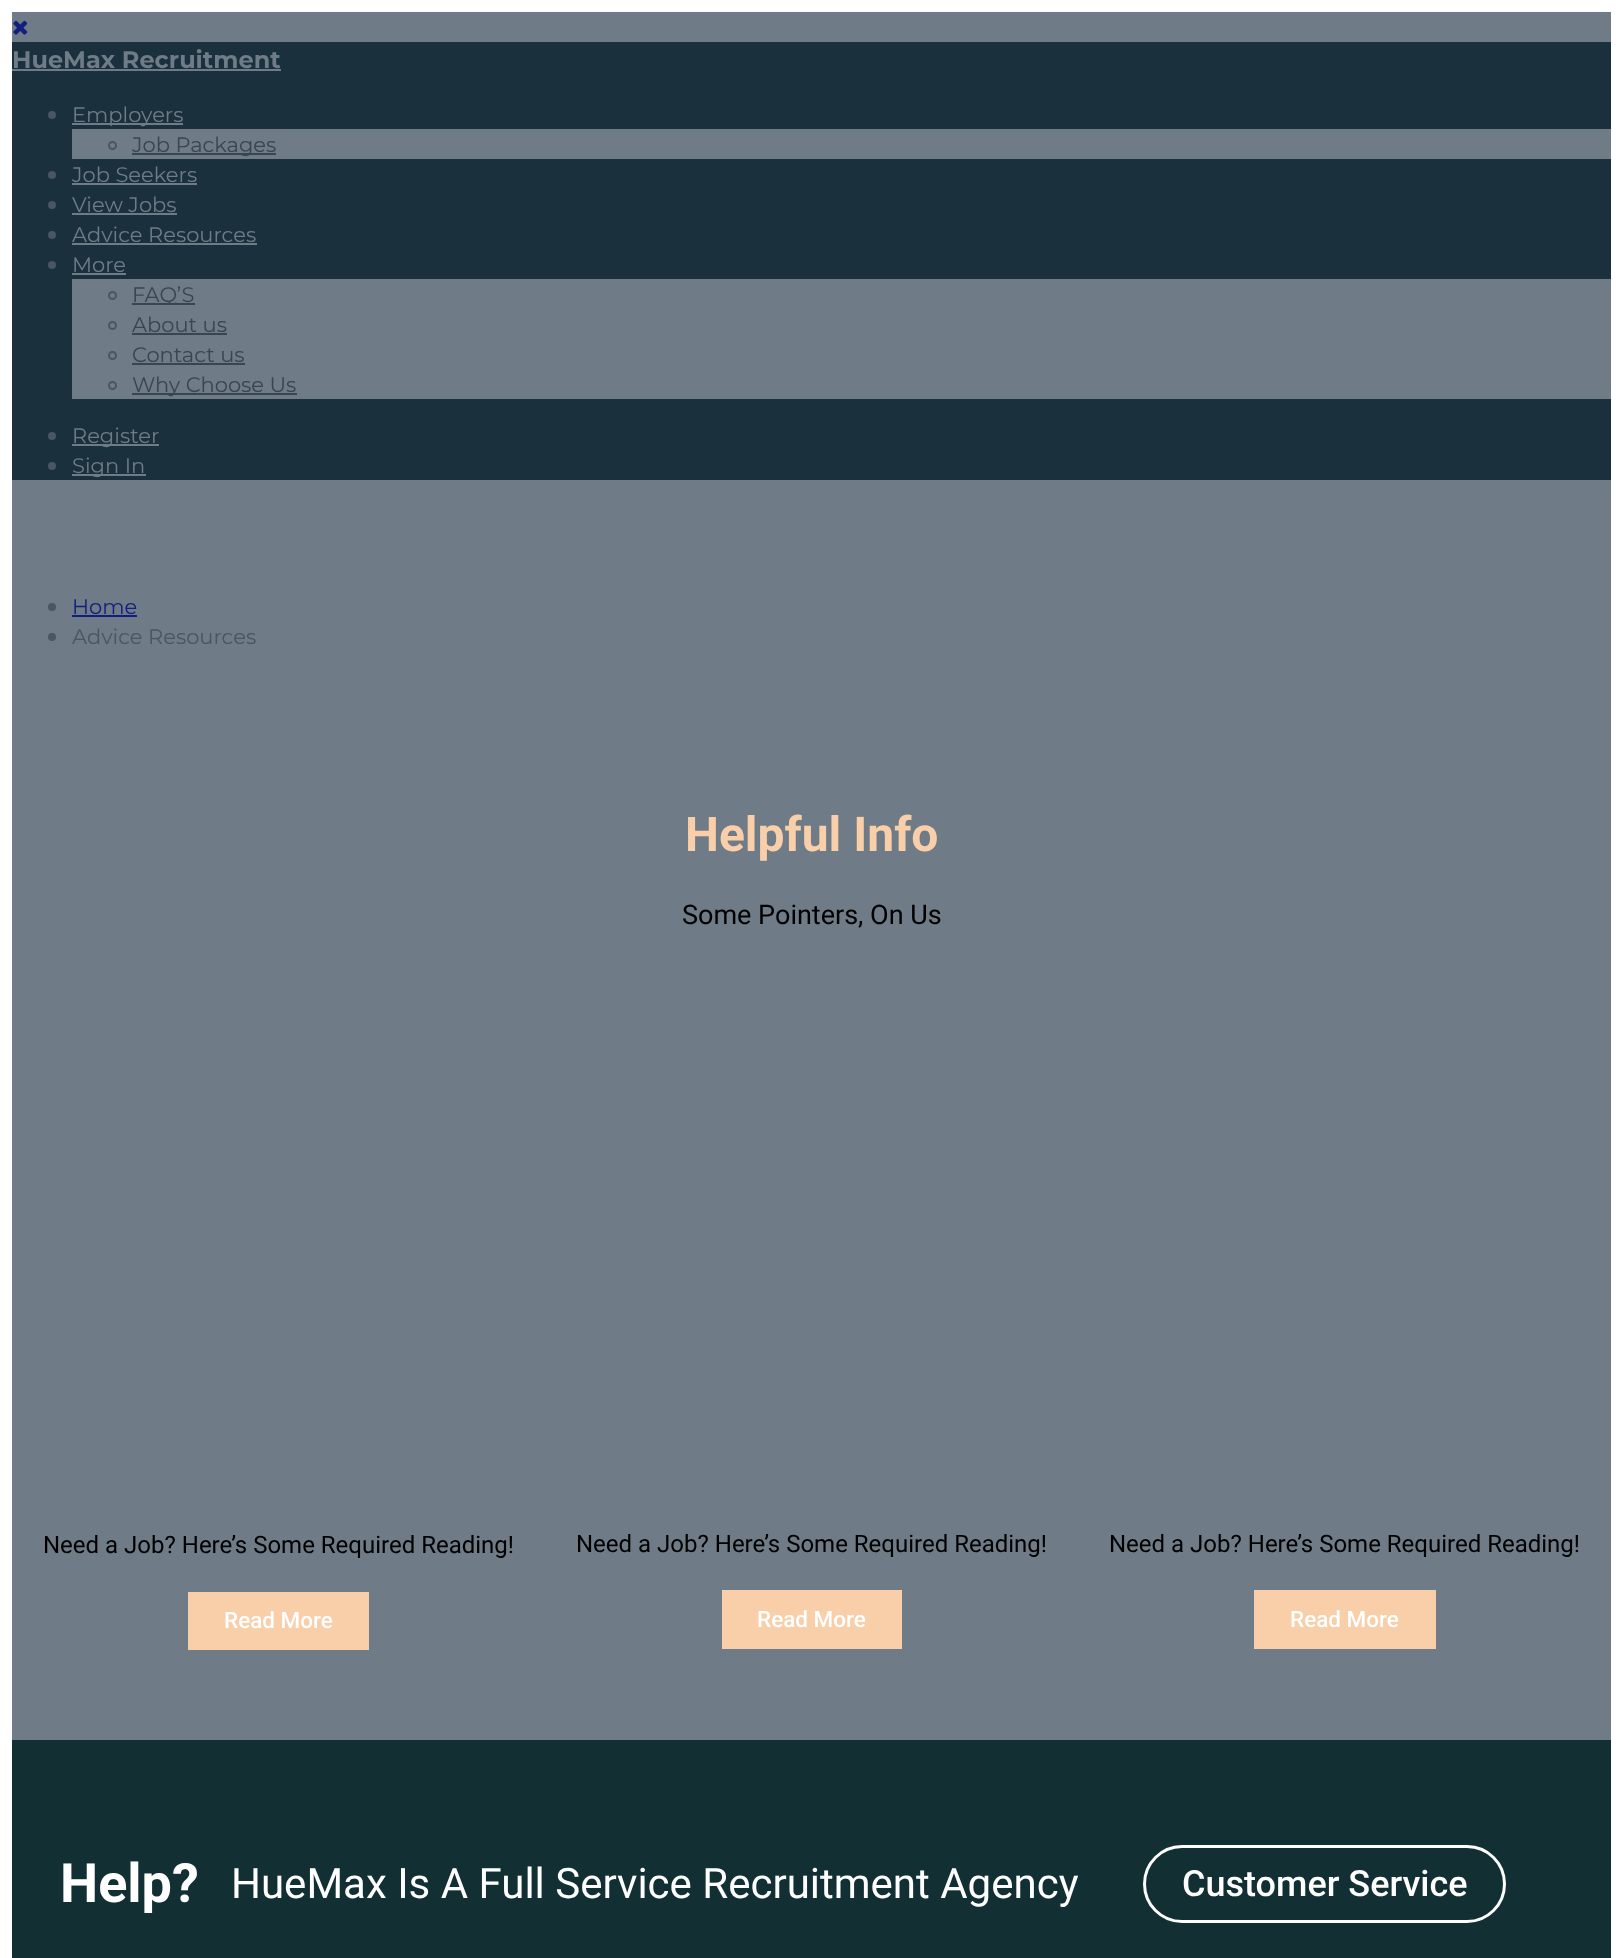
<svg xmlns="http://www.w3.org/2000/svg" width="1623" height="1958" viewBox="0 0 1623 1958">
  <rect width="100%" height="100%" fill="#ffffff"/>
  <rect x="12" y="12" width="1599" height="1728" fill="#6f7b86"/>
  <image x="13" y="20" width="15" height="15" href="img1.png"/>
  <rect x="12" y="42" width="1599" height="438" fill="#1a313d"/>
  <text x="12" y="68" font-family="Montserrat" font-size="24" font-weight="bold" fill="#6f7b86">HueMax Recruitment</text>
  <rect x="12" y="69" width="269" height="2" fill="#6f7b86"/>
  <circle cx="52" cy="115" r="4" fill="#4a5661"/>
  <rect x="72" y="123" width="111" height="2" fill="#6f7b86"/>
  <text x="72" y="122" font-family="Montserrat" font-size="21" fill="#6f7b86">Employers</text>
  <rect x="72" y="129" width="1539" height="30" fill="#6f7b86"/>
  <circle cx="112.5" cy="145.5" r="3.5" fill="none" stroke="#4a5661" stroke-width="2"/>
  <rect x="132" y="153" width="144" height="2" fill="#384651"/>
  <text x="132" y="152" font-family="Montserrat" font-size="21" fill="#384651">Job Packages</text>
  <circle cx="52" cy="175" r="4" fill="#4a5661"/>
  <text x="72" y="182" font-family="Montserrat" font-size="21" fill="#6f7b86">Job Seekers</text>
  <rect x="72" y="183" width="125" height="2" fill="#6f7b86"/>
  <circle cx="52" cy="205" r="4" fill="#4a5661"/>
  <text x="72" y="212" font-family="Montserrat" font-size="21" fill="#6f7b86">View Jobs</text>
  <rect x="72" y="213" width="105" height="2" fill="#6f7b86"/>
  <circle cx="52" cy="235" r="4" fill="#4a5661"/>
  <text x="72" y="242" font-family="Montserrat" font-size="21" fill="#6f7b86">Advice Resources</text>
  <rect x="72" y="243" width="185" height="2" fill="#6f7b86"/>
  <circle cx="52" cy="265" r="4" fill="#4a5661"/>
  <text x="72" y="272" font-family="Montserrat" font-size="21" fill="#6f7b86">More</text>
  <rect x="72" y="273" width="54" height="2" fill="#6f7b86"/>
  <rect x="72" y="279" width="1539" height="120" fill="#6f7b86"/>
  <circle cx="112.5" cy="295.5" r="3.5" fill="none" stroke="#4a5661" stroke-width="2"/>
  <rect x="132" y="303" width="63" height="2" fill="#384651"/>
  <text x="132" y="302" font-family="Montserrat" font-size="21" fill="#384651">FAQ’S</text>
  <circle cx="112.5" cy="325.5" r="3.5" fill="none" stroke="#4a5661" stroke-width="2"/>
  <text x="132" y="332" font-family="Montserrat" font-size="21" fill="#384651">About us</text>
  <rect x="132" y="333" width="95" height="2" fill="#384651"/>
  <circle cx="112.5" cy="355.5" r="3.5" fill="none" stroke="#4a5661" stroke-width="2"/>
  <text x="132" y="362" font-family="Montserrat" font-size="21" fill="#384651">Contact us</text>
  <rect x="132" y="363" width="113" height="2" fill="#384651"/>
  <circle cx="112.5" cy="385.5" r="3.5" fill="none" stroke="#4a5661" stroke-width="2"/>
  <rect x="132" y="393" width="165" height="2" fill="#384651"/>
  <text x="132" y="392" font-family="Montserrat" font-size="21" fill="#384651">Why Choose Us</text>
  <circle cx="52" cy="436" r="4" fill="#4a5661"/>
  <rect x="72" y="444" width="87" height="2" fill="#6f7b86"/>
  <text x="72" y="443" font-family="Montserrat" font-size="21" fill="#6f7b86">Register</text>
  <circle cx="52" cy="466" r="4" fill="#4a5661"/>
  <rect x="72" y="474" width="74" height="2" fill="#6f7b86"/>
  <text x="72" y="473" font-family="Montserrat" font-size="21" fill="#6f7b86">Sign In</text>
  <circle cx="52" cy="607" r="4" fill="#4a5661"/>
  <text x="72" y="614" font-family="Montserrat" font-size="21" fill="#131f80">Home</text>
  <rect x="72" y="615" width="65" height="2" fill="#131f80"/>
  <circle cx="52" cy="637" r="4" fill="#4a5661"/>
  <text x="72" y="644" font-family="Montserrat" font-size="21" fill="#4a5661">Advice Resources</text>
  <text x="685" y="851" font-family="Roboto" font-size="48" font-weight="bold" fill="#f8cfa9">Helpful Info</text>
  <text x="682" y="924" font-family="Roboto" font-size="27" fill="#000000">Some Pointers, On Us</text>
  <text x="43" y="1553" font-family="Roboto" font-size="24" fill="#000000">Need a Job? Here’s Some Required Reading!</text>
  <rect x="188" y="1592" width="181" height="58" fill="#f8cfa9"/>
  <text x="224" y="1628" font-family="Roboto" font-size="22.5" font-weight="500" fill="#ffffff">Read More</text>
  <text x="576" y="1552" font-family="Roboto" font-size="24" fill="#000000">Need a Job? Here’s Some Required Reading!</text>
  <rect x="722" y="1590" width="180" height="59" fill="#f8cfa9"/>
  <text x="757" y="1627" font-family="Roboto" font-size="22.5" font-weight="500" fill="#ffffff">Read More</text>
  <text x="1109" y="1552" font-family="Roboto" font-size="24" fill="#000000">Need a Job? Here’s Some Required Reading!</text>
  <rect x="1254" y="1590" width="182" height="59" fill="#f8cfa9"/>
  <text x="1290" y="1627" font-family="Roboto" font-size="22.5" font-weight="500" fill="#ffffff">Read More</text>
  <rect x="12" y="1740" width="1599" height="218" fill="#123033"/>
  <text x="60" y="1902" font-family="Roboto" font-size="54" font-weight="bold" fill="#ffffff">Help?</text>
  <text x="231" y="1898" font-family="Roboto" font-size="42" fill="#ffffff">HueMax Is A Full Service Recruitment Agency</text>
  <rect x="1144.5" y="1846.5" width="360" height="75" rx="37.5" fill="none" stroke="#ffffff" stroke-width="3"/>
  <text x="1182" y="1896" font-family="Roboto" font-size="36" font-weight="500" fill="#ffffff">Customer Service</text>
</svg>
